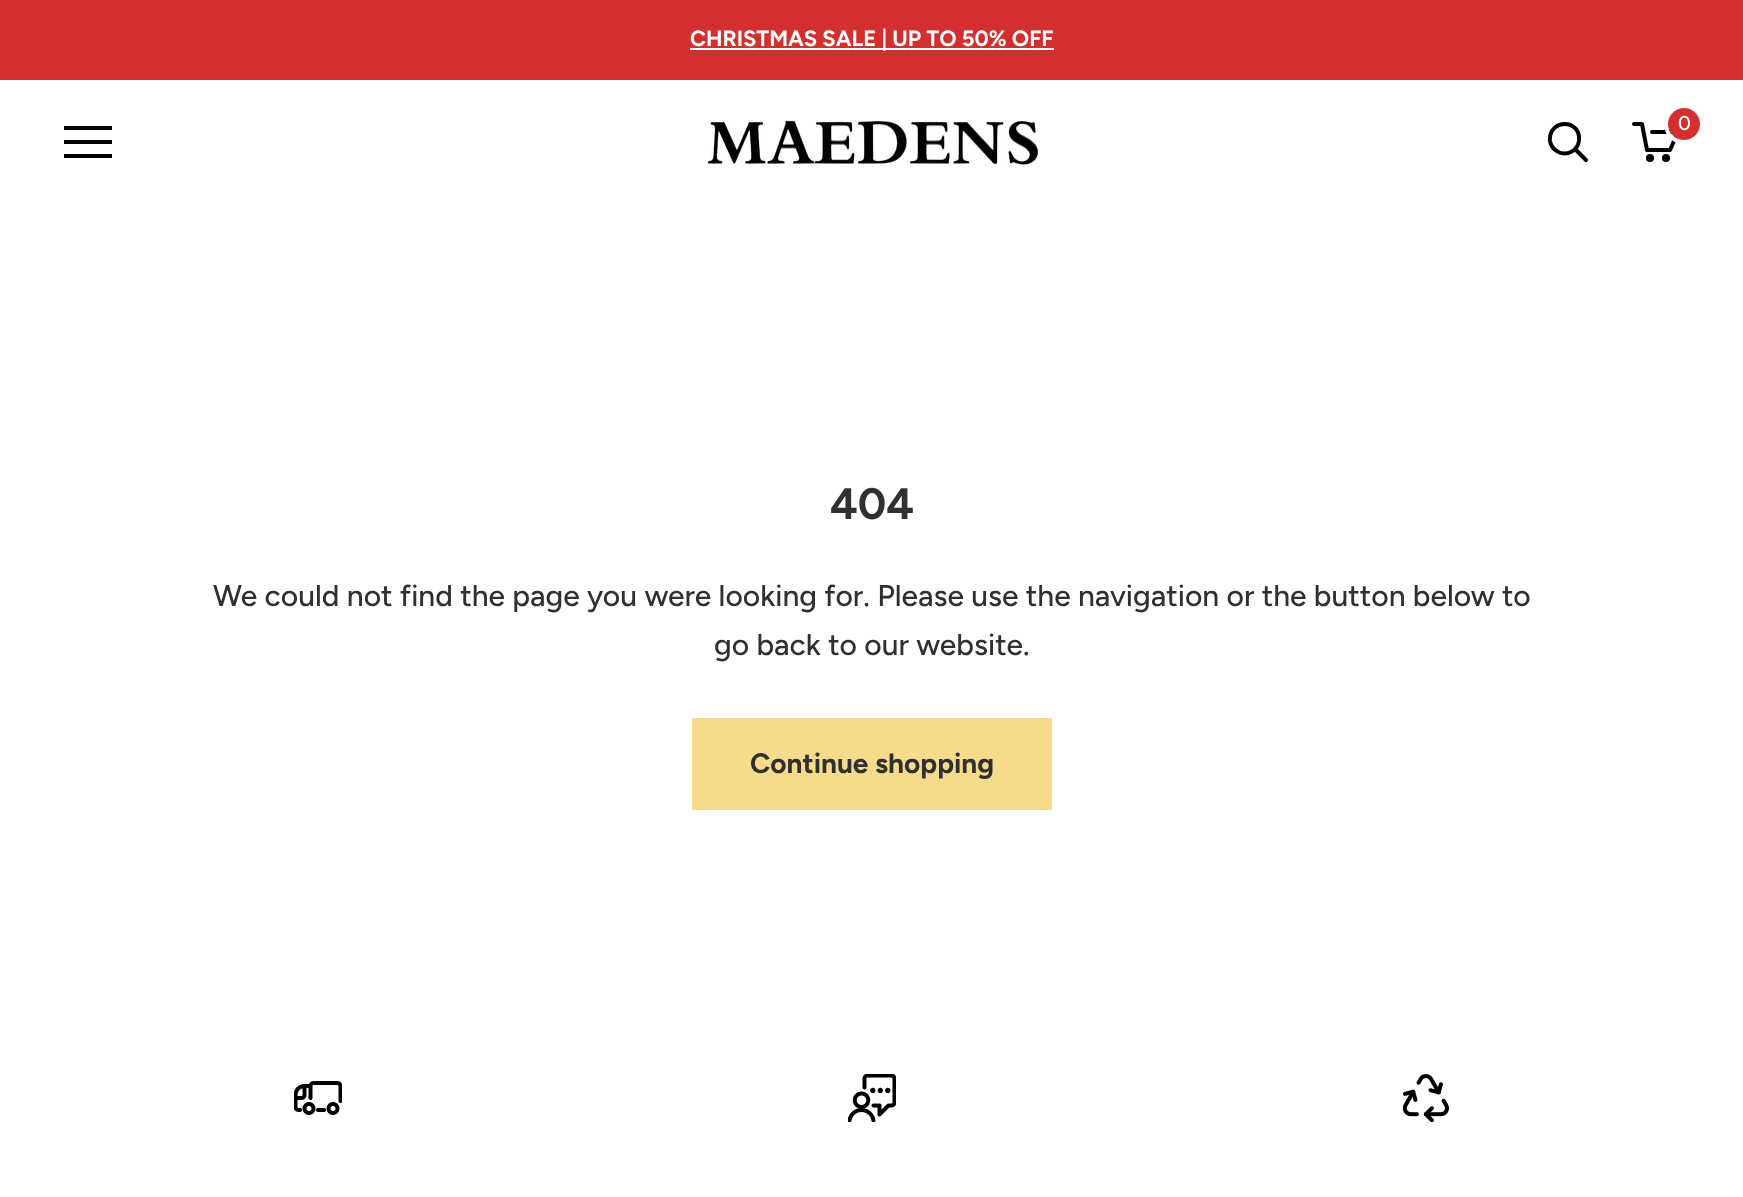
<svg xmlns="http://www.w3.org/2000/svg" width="1743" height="1197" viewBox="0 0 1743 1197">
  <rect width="100%" height="100%" fill="#ffffff"/>
  <rect x="0" y="0" width="1743" height="80" fill="#d42f2f"/>
  <rect x="690" y="48" width="364" height="2" fill="#ffffff"/>
  <text x="690" y="46" font-family="Figtree" font-size="22" font-weight="bold" fill="#ffffff">CHRISTMAS SALE | UP TO 50% OFF</text>
  <path d="M66 156H110M66 142H110M66 128H110" fill="none" stroke="#000000" stroke-width="4" stroke-linecap="square"/>
  <image x="707" y="120" width="331" height="45" href="img1.png"/>
  <path d="M1564.5 124C1549.5 124 1544 144 1557.5 151.5C1559.5 153 1562 153.5 1564.5 153.5C1584.5 152.5 1583.5 124 1564.5 124Z" fill="none" stroke="#000000" stroke-width="4"/>
  <path d="M1575.5 149.5L1586 160" fill="none" stroke="#000000" stroke-width="4" stroke-linecap="round"/>
  <path d="M1652 132H1678L1670 150H1647L1642 124H1634" fill="none" stroke="#000000" stroke-width="4" stroke-linecap="round" stroke-linejoin="round"/>
  <circle cx="1650" cy="158" r="2" fill="none" stroke="#000000" stroke-width="4"/>
  <circle cx="1666" cy="158" r="2" fill="none" stroke="#000000" stroke-width="4"/>
  <circle cx="1684" cy="124" r="18" fill="none" stroke="#ffffff" stroke-width="4"/>
  <circle cx="1684" cy="124" r="16" fill="#d42f2f"/>
  <text x="1678" y="130" font-family="Figtree" font-size="20" font-weight="500" fill="#ffffff">0</text>
  <text x="830" y="519" font-family="Figtree" font-size="44" font-weight="bold" fill="#303030">404</text>
  <text x="213" y="606" font-family="Figtree" font-size="30" font-weight="500" fill="#303030">We could not find the page you were looking for. Please use the navigation or the button below to</text>
  <text x="714" y="655" font-family="Figtree" font-size="30" font-weight="500" fill="#303030">go back to our website.</text>
  <rect x="693" y="719" width="358" height="90" fill="#f5db8b" stroke="#f5db8b" stroke-width="2"/>
  <text x="750" y="773" font-family="Figtree" font-size="28" font-weight="bold" fill="#303030">Continue shopping</text>
  <image x="294" y="1081" width="48" height="34" href="img2.png"/>
  <image x="848" y="1074" width="48" height="48" href="img3.png"/>
  <image x="1402" y="1074" width="47" height="48" href="img4.png"/>
</svg>
